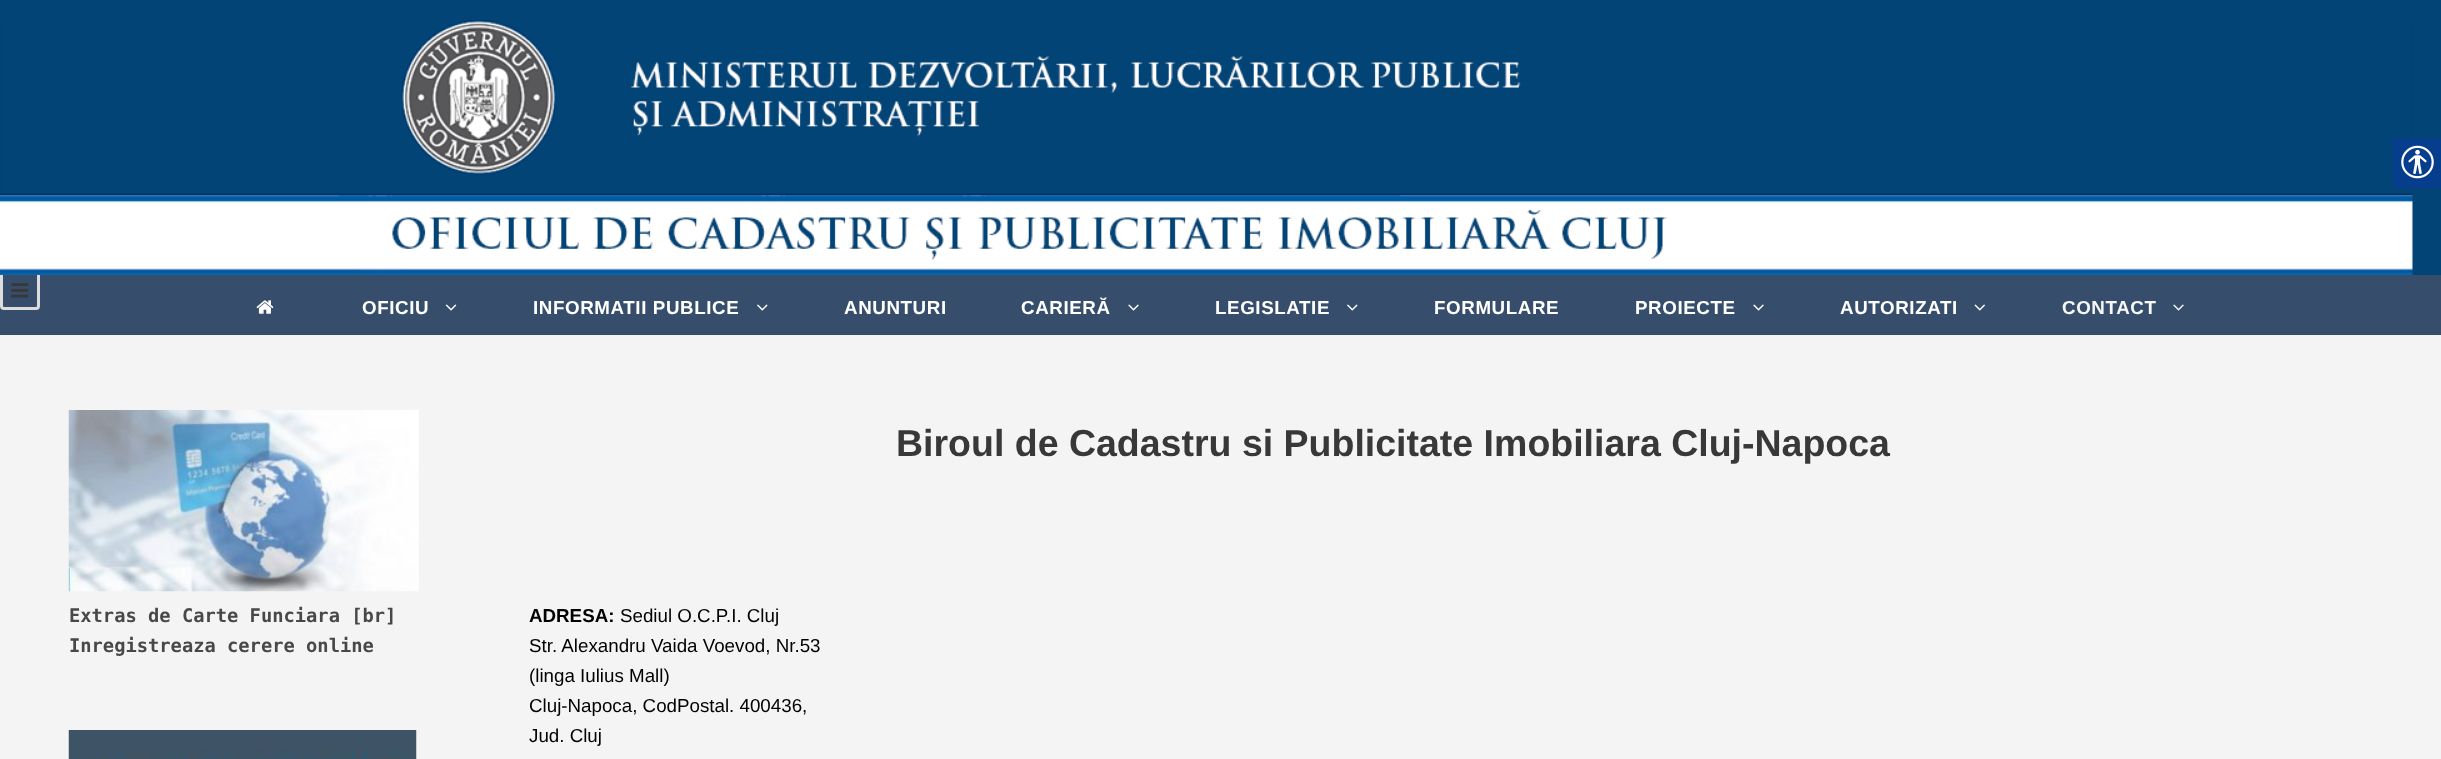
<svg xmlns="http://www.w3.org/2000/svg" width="2441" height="759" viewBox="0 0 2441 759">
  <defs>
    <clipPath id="clip1"><rect x="0" y="275" width="2441" height="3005"/></clipPath>
  </defs>
  <rect width="100%" height="100%" fill="#024476"/>
  <image x="0" y="20" width="2413" height="255" href="img1.png"/>
  <rect x="2393" y="138" width="48" height="50" fill="#063d8d"/>
  <image x="2401" y="145" width="33" height="34" href="img2.png"/>
  <rect x="0" y="335" width="2441" height="424" fill="#f4f4f4"/>
  <rect x="0" y="275" width="2441" height="60" fill="#364e6b"/>
  <g clip-path="url(#clip1)">
    <rect x="1.5" y="271.5" width="37" height="37" rx="2.5" fill="none" stroke="#dddddd" stroke-width="3"/>
  </g>
  <image x="11" y="283" width="18" height="15" href="img3.png"/>
  <image x="256" y="300" width="18" height="14" href="img4.png"/>
  <text x="362" y="314" font-family="Liberation Sans" font-size="18.75" font-weight="bold" letter-spacing="0.6" fill="#ffffff">OFICIU</text>
  <image x="445" y="304" width="12" height="7" href="img5.png"/>
  <text x="533" y="314" font-family="Liberation Sans" font-size="18.75" font-weight="bold" letter-spacing="0.6" fill="#ffffff">INFORMATII PUBLICE</text>
  <image x="757" y="304" width="11" height="7" href="img6.png"/>
  <text x="844" y="314" font-family="Liberation Sans" font-size="18.75" font-weight="bold" letter-spacing="0.6" fill="#ffffff">ANUNTURI</text>
  <text x="1021" y="314" font-family="Liberation Sans" font-size="18.75" font-weight="bold" letter-spacing="0.6" fill="#ffffff">CARIERĂ</text>
  <image x="1128" y="304" width="11" height="7" href="img7.png"/>
  <text x="1215" y="314" font-family="Liberation Sans" font-size="18.75" font-weight="bold" letter-spacing="0.6" fill="#ffffff">LEGISLATIE</text>
  <image x="1347" y="304" width="11" height="7" href="img6.png"/>
  <text x="1434" y="314" font-family="Liberation Sans" font-size="18.75" font-weight="bold" letter-spacing="0.6" fill="#ffffff">FORMULARE</text>
  <text x="1635" y="314" font-family="Liberation Sans" font-size="18.75" font-weight="bold" letter-spacing="0.6" fill="#ffffff">PROIECTE</text>
  <image x="1753" y="304" width="11" height="7" href="img7.png"/>
  <text x="1840" y="314" font-family="Liberation Sans" font-size="18.75" font-weight="bold" letter-spacing="0.6" fill="#ffffff">AUTORIZATI</text>
  <image x="1974" y="304" width="11" height="7" href="img8.png"/>
  <text x="2062" y="314" font-family="Liberation Sans" font-size="18.75" font-weight="bold" letter-spacing="0.6" fill="#f7f7f7">CONTACT</text>
  <image x="2173" y="304" width="11" height="7" href="img9.png"/>
  <image x="68" y="410" width="351" height="182" href="img10.png"/>
  <text x="69" y="622" font-family="DejaVu Sans Mono" font-size="18.75" font-weight="bold" fill="#484848">Extras de Carte Funciara [br]</text>
  <text x="69" y="652" font-family="DejaVu Sans Mono" font-size="18.75" font-weight="bold" fill="#484848">Inregistreaza cerere online</text>
  <image x="68" y="730" width="349" height="29" href="img11.png"/>
  <text x="896" y="456" font-family="Liberation Sans" font-size="37.5" font-weight="bold" fill="#383838">Biroul de Cadastru si Publicitate Imobiliara Cluj-Napoca</text>
  <text x="529" y="622" font-family="Liberation Sans" font-size="18.75" font-weight="bold" fill="#000000">ADRESA:</text>
  <text x="620" y="622" font-family="Liberation Sans" font-size="18.75" fill="#000000">Sediul O.C.P.I. Cluj</text>
  <text x="529" y="652" font-family="Liberation Sans" font-size="18.75" fill="#000000">Str. Alexandru Vaida Voevod, Nr.53</text>
  <text x="529" y="682" font-family="Liberation Sans" font-size="18.75" fill="#000000">(linga Iulius Mall)</text>
  <text x="529" y="712" font-family="Liberation Sans" font-size="18.75" fill="#000000">Cluj-Napoca, CodPostal. 400436,</text>
  <text x="529" y="742" font-family="Liberation Sans" font-size="18.75" fill="#000000">Jud. Cluj</text>
</svg>
